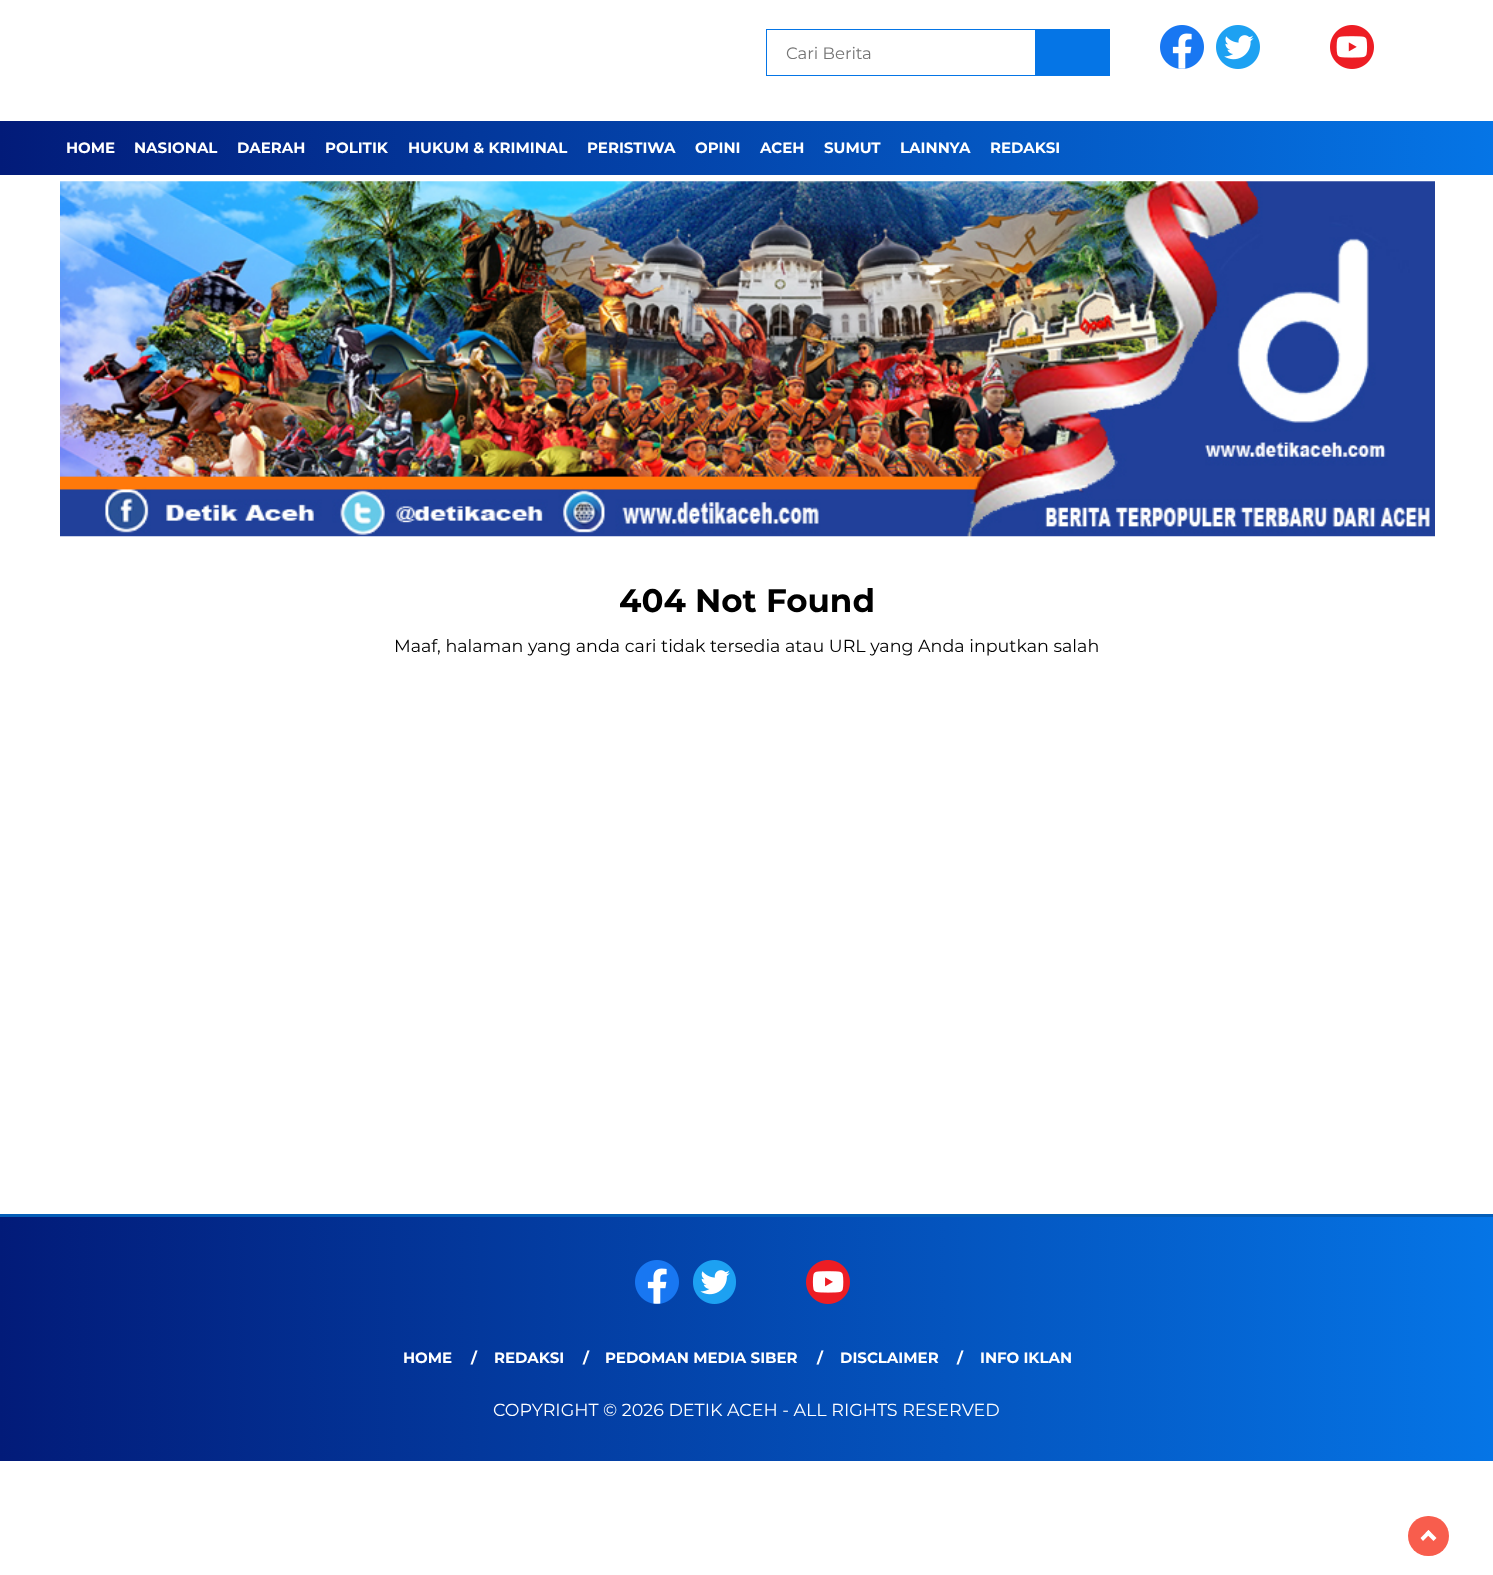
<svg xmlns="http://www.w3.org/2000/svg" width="1493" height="1575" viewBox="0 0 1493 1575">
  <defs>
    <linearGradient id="g1" gradientUnits="userSpaceOnUse" x1="0" y1="148" x2="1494" y2="148"><stop offset="0" stop-color="#021b79"/><stop offset="1" stop-color="#0575e6"/></linearGradient>
    <linearGradient id="g2" gradientUnits="userSpaceOnUse" x1="0" y1="1339" x2="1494" y2="1339"><stop offset="0" stop-color="#021b79"/><stop offset="1" stop-color="#0575e6"/></linearGradient>
  </defs>
  <rect width="100%" height="100%" fill="#ffffff"/>
  <rect x="766.5" y="29.5" width="269" height="46" fill="none" stroke="#0575e6"/>
  <text x="786" y="59" font-family="Montserrat" font-size="16.5" fill="#757575">Cari Berita</text>
  <rect x="1036" y="29" width="74" height="47" fill="#0575e6"/>
  <image x="1160" y="25" width="44" height="44" href="img1.png"/>
  <image x="1216" y="25" width="44" height="44" href="img2.png"/>
  <image x="1330" y="25" width="44" height="44" href="img3.png"/>
  <rect x="0" y="121" width="1493" height="54" fill="url(#g1)"/>
  <text x="66" y="153" font-family="Montserrat" font-size="15" font-weight="bold" fill="#ffffff">HOME</text>
  <text x="134" y="153" font-family="Montserrat" font-size="15" font-weight="bold" fill="#ffffff">NASIONAL</text>
  <text x="237" y="153" font-family="Montserrat" font-size="15" font-weight="bold" fill="#ffffff">DAERAH</text>
  <text x="325" y="153" font-family="Montserrat" font-size="15" font-weight="bold" fill="#ffffff">POLITIK</text>
  <text x="408" y="153" font-family="Montserrat" font-size="15" font-weight="bold" fill="#ffffff">HUKUM &amp; KRIMINAL</text>
  <text x="587" y="153" font-family="Montserrat" font-size="15" font-weight="bold" fill="#ffffff">PERISTIWA</text>
  <text x="695" y="153" font-family="Montserrat" font-size="15" font-weight="bold" fill="#ffffff">OPINI</text>
  <text x="760" y="153" font-family="Montserrat" font-size="15" font-weight="bold" fill="#ffffff">ACEH</text>
  <text x="824" y="153" font-family="Montserrat" font-size="15" font-weight="bold" fill="#ffffff">SUMUT</text>
  <text x="900" y="153" font-family="Montserrat" font-size="15" font-weight="bold" fill="#ffffff">LAINNYA</text>
  <text x="990" y="153" font-family="Montserrat" font-size="15" font-weight="bold" fill="#ffffff">REDAKSI</text>
  <image x="60" y="181" width="1375" height="356" href="img4.png"/>
  <text x="619" y="612" font-family="Montserrat" font-size="32.5" font-weight="bold" fill="#000000">404 Not Found</text>
  <text x="394" y="652" font-family="Montserrat" font-size="17.5" fill="#000000">Maaf, halaman yang anda cari tidak tersedia atau URL yang Anda inputkan salah</text>
  <rect x="0" y="1217" width="1493" height="244" fill="url(#g2)"/>
  <rect x="0" y="1214" width="1493" height="3" fill="#045eb8"/>
  <image x="635" y="1260" width="44" height="44" href="img5.png"/>
  <image x="693" y="1260" width="43" height="44" href="img6.png"/>
  <image x="806" y="1260" width="44" height="44" href="img7.png"/>
  <text x="403" y="1363" font-family="Montserrat" font-size="15" font-weight="bold" fill="#ffffff">HOME</text>
  <text x="471" y="1363" font-family="Montserrat" font-size="15" font-weight="bold" fill="#ffffff">/</text>
  <text x="494" y="1363" font-family="Montserrat" font-size="15" font-weight="bold" fill="#ffffff">REDAKSI</text>
  <text x="583" y="1363" font-family="Montserrat" font-size="15" font-weight="bold" fill="#ffffff">/</text>
  <text x="605" y="1363" font-family="Montserrat" font-size="15" font-weight="bold" fill="#ffffff">PEDOMAN MEDIA SIBER</text>
  <text x="817" y="1363" font-family="Montserrat" font-size="15" font-weight="bold" fill="#ffffff">/</text>
  <text x="840" y="1363" font-family="Montserrat" font-size="15" font-weight="bold" fill="#ffffff">DISCLAIMER</text>
  <text x="957" y="1363" font-family="Montserrat" font-size="15" font-weight="bold" fill="#ffffff">/</text>
  <text x="980" y="1363" font-family="Montserrat" font-size="15" font-weight="bold" fill="#ffffff">INFO IKLAN</text>
  <text x="493" y="1416" font-family="Montserrat" font-size="17.5" fill="#ffffff">COPYRIGHT © 2026 DETIK ACEH - ALL RIGHTS RESERVED</text>
  <rect x="1408" y="1516" width="41" height="40" rx="20" fill="#f85d4d"/>
  <path d="M1423 1541L1420.5 1538L1428.5 1530L1431 1533Z" fill="#ffffff"/>
  <path d="M1433.5 1541L1425.5 1533L1428.5 1530L1436.5 1538Z" fill="#ffffff"/>
</svg>
